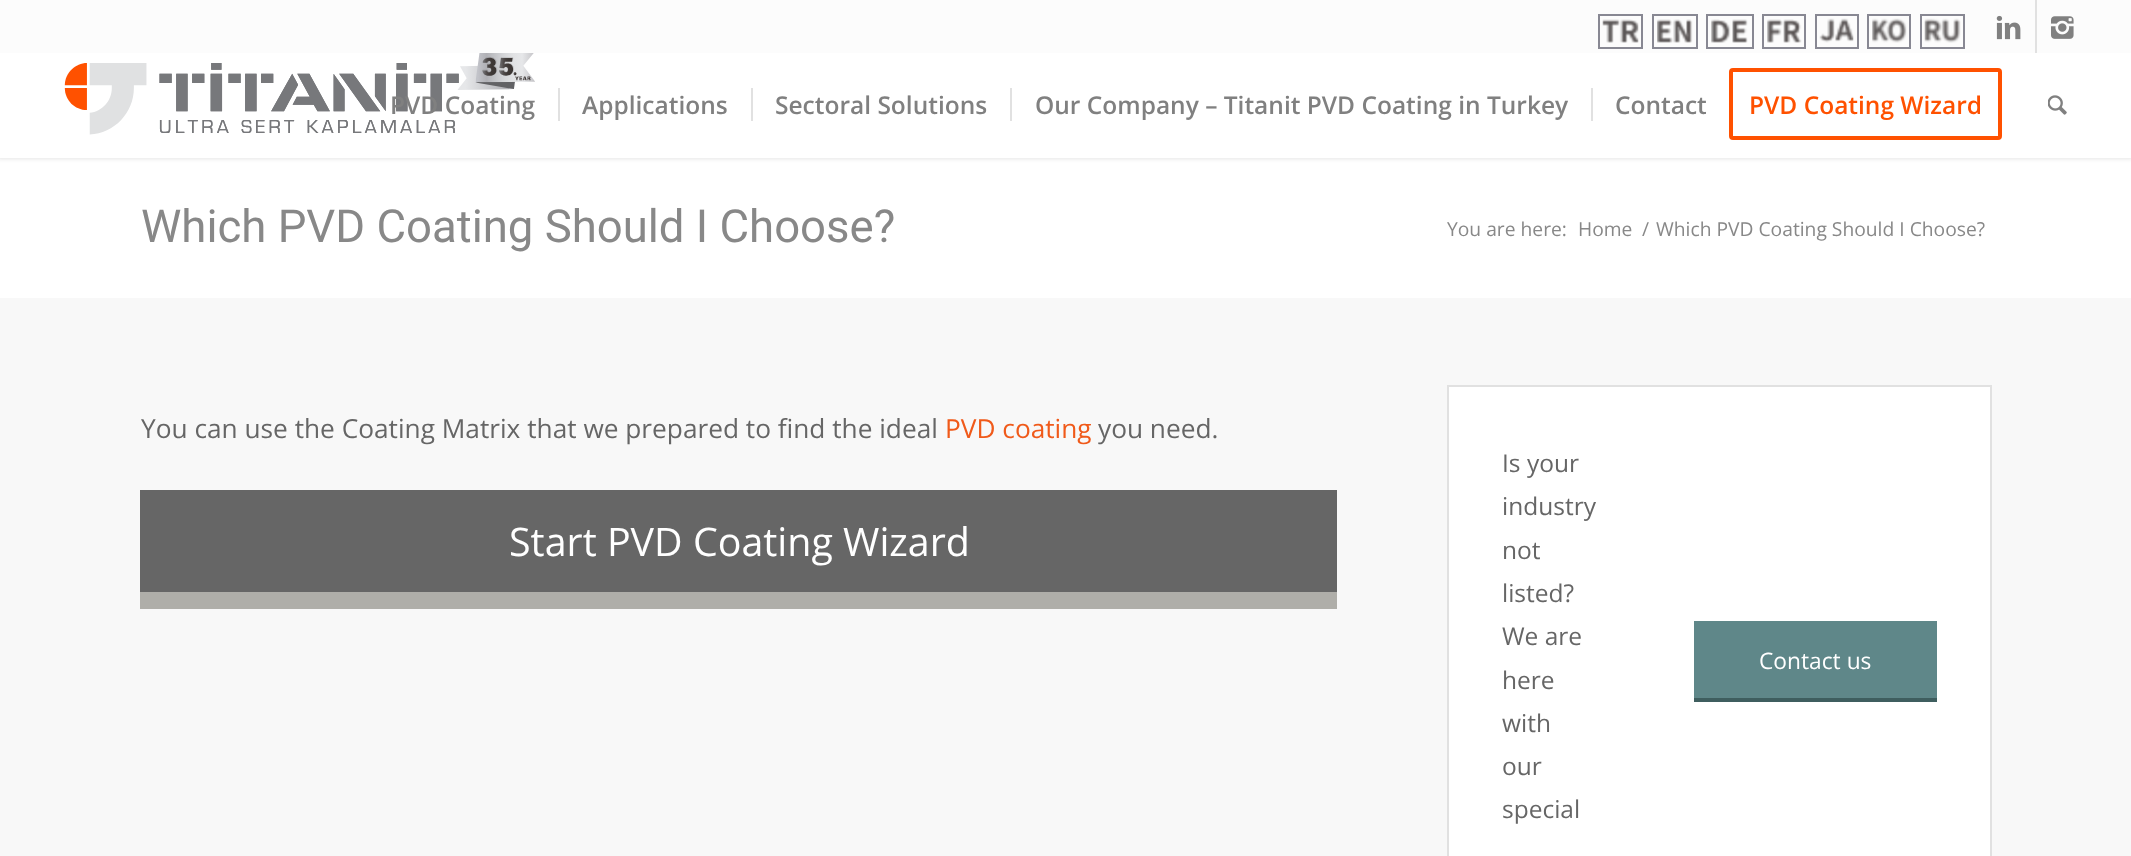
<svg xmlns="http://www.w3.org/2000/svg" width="2131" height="856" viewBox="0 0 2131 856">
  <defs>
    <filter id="blur1" x="-50%" y="-200%" width="200%" height="500%"><feGaussianBlur stdDeviation="2"/></filter>
  </defs>
  <rect width="100%" height="100%" fill="#ffffff"/>
  <rect x="-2" y="-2" width="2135" height="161" fill="#000000" fill-opacity="0.1" filter="url(#blur1)"/>
  <rect x="0" y="0" width="2131" height="53" fill="#fcfcfc"/>
  <rect x="1599" y="15" width="43" height="33" fill="none" stroke="#888893" stroke-width="2"/>
  <image x="1602" y="19" width="37" height="24" href="img1.png"/>
  <rect x="1653" y="15" width="44" height="33" fill="none" stroke="#888893" stroke-width="2"/>
  <image x="1657" y="19" width="36" height="24" href="img2.png"/>
  <rect x="1707" y="15" width="46" height="33" fill="none" stroke="#888893" stroke-width="2"/>
  <image x="1711" y="19" width="37" height="24" href="img3.png"/>
  <rect x="1763" y="15" width="42" height="33" fill="none" stroke="#888893" stroke-width="2"/>
  <image x="1767" y="19" width="35" height="24" href="img4.png"/>
  <rect x="1816" y="15" width="42" height="33" fill="none" stroke="#888893" stroke-width="2"/>
  <image x="1819" y="18" width="35" height="25" href="img5.png"/>
  <rect x="1868" y="15" width="42" height="33" fill="none" stroke="#888893" stroke-width="2"/>
  <image x="1872" y="18" width="35" height="25" href="img6.png"/>
  <rect x="1921" y="15" width="43" height="33" fill="none" stroke="#888893" stroke-width="2"/>
  <image x="1924" y="18" width="37" height="25" href="img7.png"/>
  <rect x="2035" y="0" width="2" height="53" fill="#e1e1e1"/>
  <image x="1996" y="15" width="25" height="25" href="img8.png"/>
  <image x="2051" y="16" width="23" height="23" href="img9.png"/>
  <rect x="0" y="53" width="2131" height="105" fill="#ffffff"/>
  <image x="64" y="53" width="471" height="82" href="img10.png"/>
  <text x="390" y="114" font-family="Open Sans" font-size="24.5" font-weight="600" fill="#808080">PVD Coating</text>
  <text x="582" y="114" font-family="Open Sans" font-size="24.5" font-weight="600" fill="#808080">Applications</text>
  <rect x="558" y="88" width="2" height="33" fill="#e1e1e1"/>
  <text x="775" y="114" font-family="Open Sans" font-size="24.5" font-weight="600" fill="#808080">Sectoral Solutions</text>
  <rect x="751" y="88" width="2" height="33" fill="#e1e1e1"/>
  <text x="1035" y="114" font-family="Open Sans" font-size="24.5" font-weight="600" fill="#808080">Our Company – Titanit PVD Coating in Turkey</text>
  <rect x="1010" y="88" width="2" height="33" fill="#e1e1e1"/>
  <text x="1615" y="114" font-family="Open Sans" font-size="24.5" font-weight="600" fill="#808080">Contact</text>
  <rect x="1591" y="88" width="2" height="33" fill="#e1e1e1"/>
  <rect x="1731" y="70" width="269" height="68" rx="2" fill="none" stroke="#ff5100" stroke-width="4"/>
  <text x="1749" y="114" font-family="Open Sans" font-size="24.5" font-weight="600" fill="#ff5100">PVD Coating Wizard</text>
  <image x="2048" y="95" width="19" height="20" href="img11.png"/>
  <text x="141" y="242" font-family="Roboto" font-size="45.5" fill="#888888">Which PVD Coating Should I Choose?</text>
  <text x="1447" y="236" font-family="Open Sans" font-size="19.25" fill="#888888">You are here:</text>
  <text x="1578" y="236" font-family="Open Sans" font-size="19.25" fill="#888888">Home</text>
  <text x="1642" y="236" font-family="Open Sans" font-size="19.25" fill="#888888">/</text>
  <text x="1656" y="236" font-family="Open Sans" font-size="19.25" fill="#888888">Which PVD Coating Should I Choose?</text>
  <rect x="0" y="298" width="2131" height="558" fill="#f8f8f8"/>
  <text x="141" y="438" font-family="Open Sans" font-size="26.25" fill="#666666">You can use the Coating Matrix that we prepared to find the ideal</text>
  <text x="945" y="438" font-family="Open Sans" font-size="26.25" fill="#f05a1a">PVD coating</text>
  <text x="1098" y="438" font-family="Open Sans" font-size="26.25" fill="#666666">you need.</text>
  <rect x="140" y="592" width="1197" height="17" fill="#afaea9"/>
  <rect x="140" y="490" width="1197" height="102" fill="#666666"/>
  <text x="509" y="556" font-family="Open Sans" font-size="39.4" fill="#ffffff">Start PVD Coating Wizard</text>
  <rect x="1448" y="386" width="543" height="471" fill="#ffffff" stroke="#e1e1e1" stroke-width="2"/>
  <text x="1502" y="472" font-family="Open Sans" font-size="24.5" fill="#666666">Is your</text>
  <text x="1502" y="515" font-family="Open Sans" font-size="24.5" fill="#666666">industry</text>
  <text x="1502" y="559" font-family="Open Sans" font-size="24.5" fill="#666666">not</text>
  <text x="1502" y="602" font-family="Open Sans" font-size="24.5" fill="#666666">listed?</text>
  <text x="1502" y="645" font-family="Open Sans" font-size="24.5" fill="#666666">We are</text>
  <text x="1502" y="689" font-family="Open Sans" font-size="24.5" fill="#666666">here</text>
  <text x="1502" y="732" font-family="Open Sans" font-size="24.5" fill="#666666">with</text>
  <text x="1502" y="775" font-family="Open Sans" font-size="24.5" fill="#666666">our</text>
  <text x="1502" y="818" font-family="Open Sans" font-size="24.5" fill="#666666">special</text>
  <rect x="1694" y="621" width="243" height="77" fill="#5f8789"/>
  <rect x="1694" y="698" width="243" height="4" fill="#3f5e5f"/>
  <text x="1759" y="669" font-family="Open Sans" font-size="22.75" fill="#ffffff">Contact us</text>
</svg>
